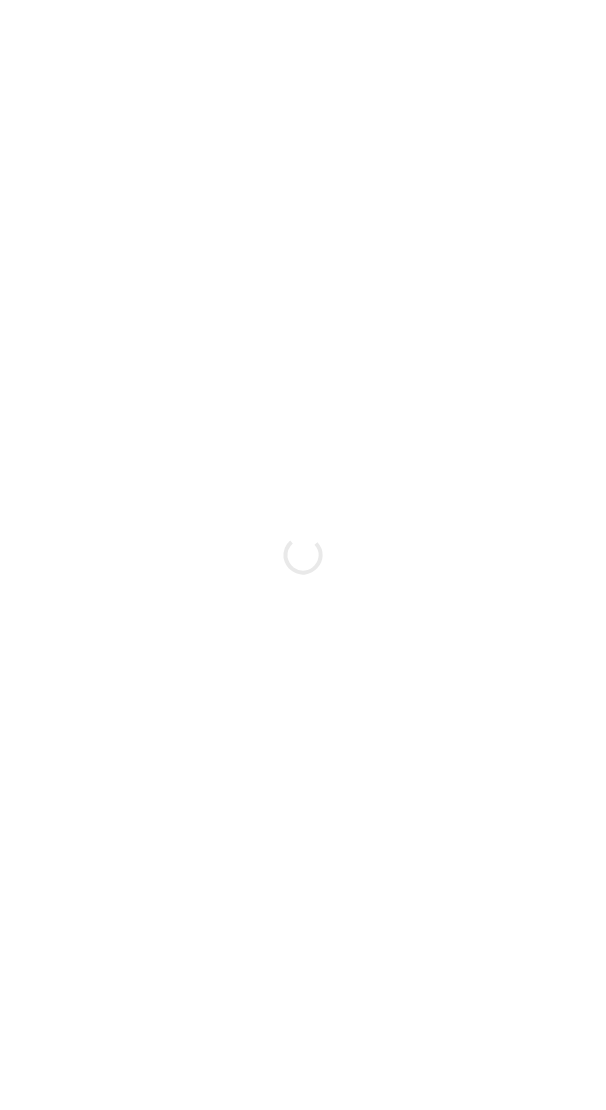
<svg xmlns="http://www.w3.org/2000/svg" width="606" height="1110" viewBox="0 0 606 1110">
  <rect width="100%" height="100%" fill="#ffffff"/>
  <image x="243" y="17" width="120" height="20" href="img1.png"/>
  <image x="562" y="16" width="19" height="19" href="img2.png"/>
  <image x="274" y="207" width="16" height="16" href="img3.png"/>
  <image x="143" y="265" width="320" height="213" href="img4.png"/>
  <image x="143" y="678" width="320" height="213" href="img4.png"/>
  <image x="143" y="1063" width="320" height="47" href="img5.png"/>
  <path d="M316 543.5C330 559 309.5 581.5 292.5 569C289 566.5 286.5 562 285.5 557.5C285 551.5 287 546 291.5 542" fill="none" stroke="#e9e9e9" stroke-width="4"/>
</svg>
